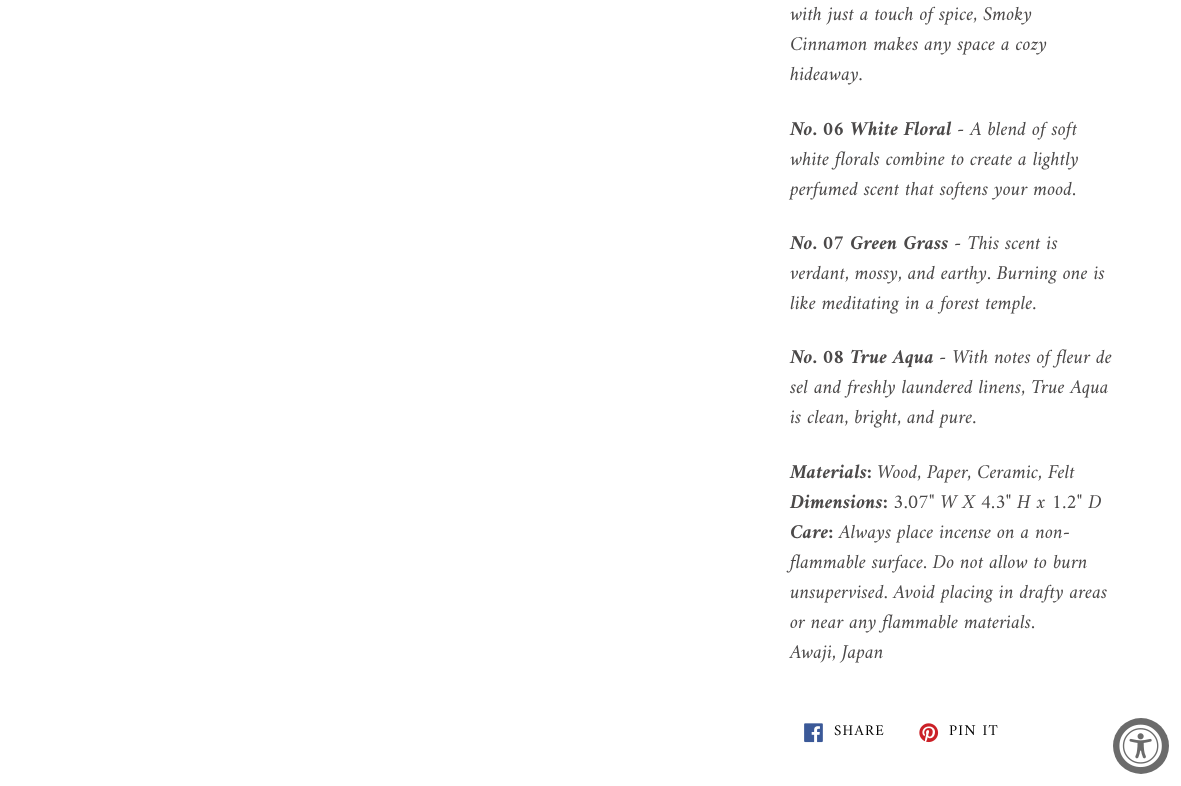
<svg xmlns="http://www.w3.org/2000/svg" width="1181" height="786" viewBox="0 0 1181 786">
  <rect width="100%" height="100%" fill="#ffffff"/>
  <text x="790" y="20" font-family="Amiri" font-size="20" font-style="italic" fill="#4b4949">with just a touch of spice, Smoky</text>
  <text x="790" y="50" font-family="Amiri" font-size="20" font-style="italic" fill="#4b4949">Cinnamon makes any space a cozy</text>
  <text x="790" y="80" font-family="Amiri" font-size="20" font-style="italic" fill="#4b4949">hideaway.</text>
  <text x="790" y="135" font-family="Amiri" font-size="20" font-weight="bold" font-style="italic" fill="#4b4949">No. 06 White Floral</text>
  <text x="957" y="135" font-family="Amiri" font-size="20" font-style="italic" fill="#4b4949">- A blend of soft</text>
  <text x="790" y="165" font-family="Amiri" font-size="20" font-style="italic" fill="#4b4949">white florals combine to create a lightly</text>
  <text x="790" y="195" font-family="Amiri" font-size="20" font-style="italic" fill="#4b4949">perfumed scent that softens your mood.</text>
  <text x="790" y="249" font-family="Amiri" font-size="20" font-weight="bold" font-style="italic" fill="#4b4949">No. 07 Green Grass</text>
  <text x="954" y="249" font-family="Amiri" font-size="20" font-style="italic" fill="#4b4949">- This scent is</text>
  <text x="790" y="279" font-family="Amiri" font-size="20" font-style="italic" fill="#4b4949">verdant, mossy, and earthy. Burning one is</text>
  <text x="790" y="309" font-family="Amiri" font-size="20" font-style="italic" fill="#4b4949">like meditating in a forest temple.</text>
  <text x="790" y="363" font-family="Amiri" font-size="20" font-weight="bold" font-style="italic" fill="#4b4949">No. 08 True Aqua</text>
  <text x="939" y="363" font-family="Amiri" font-size="20" font-style="italic" fill="#4b4949">- With notes of fleur de</text>
  <text x="790" y="393" font-family="Amiri" font-size="20" font-style="italic" fill="#4b4949">sel and freshly laundered linens, True Aqua</text>
  <text x="790" y="423" font-family="Amiri" font-size="20" font-style="italic" fill="#4b4949">is clean, bright, and pure.</text>
  <text x="790" y="478" font-family="Amiri" font-size="20" font-weight="bold" font-style="italic" fill="#4b4949">Materials:</text>
  <text x="877" y="478" font-family="Amiri" font-size="20" font-style="italic" fill="#4b4949">Wood, Paper, Ceramic, Felt</text>
  <text x="790" y="508" font-family="Amiri" font-size="20" font-weight="bold" font-style="italic" fill="#4b4949">Dimensions:</text>
  <text x="893" y="508" font-family="Amiri" font-size="20" font-style="italic" fill="#4b4949">3.07" W X 4.3" H x 1.2" D</text>
  <text x="790" y="538" font-family="Amiri" font-size="20" font-weight="bold" font-style="italic" fill="#4b4949">Care:</text>
  <text x="839" y="538" font-family="Amiri" font-size="20" font-style="italic" fill="#4b4949">Always place incense on a non-</text>
  <text x="790" y="568" font-family="Amiri" font-size="20" font-style="italic" fill="#4b4949">flammable surface. Do not allow to burn</text>
  <text x="790" y="598" font-family="Amiri" font-size="20" font-style="italic" fill="#4b4949">unsupervised. Avoid placing in drafty areas</text>
  <text x="790" y="628" font-family="Amiri" font-size="20" font-style="italic" fill="#4b4949">or near any flammable materials.</text>
  <text x="790" y="658" font-family="Amiri" font-size="20" font-style="italic" fill="#4b4949">Awaji, Japan</text>
  <image x="804" y="723" width="19" height="20" href="img1.png"/>
  <text x="834" y="735" font-family="Amiri" font-size="15" letter-spacing="1.25" fill="#030303">SHARE</text>
  <image x="919" y="723" width="20" height="20" href="img2.png"/>
  <text x="949" y="735" font-family="Amiri" font-size="15" letter-spacing="1.25" fill="#030303">PIN IT</text>
  <circle cx="1141" cy="746" r="28" fill="#6b6b6b"/>
  <image x="1119" y="724" width="43" height="44" href="img3.png"/>
</svg>
